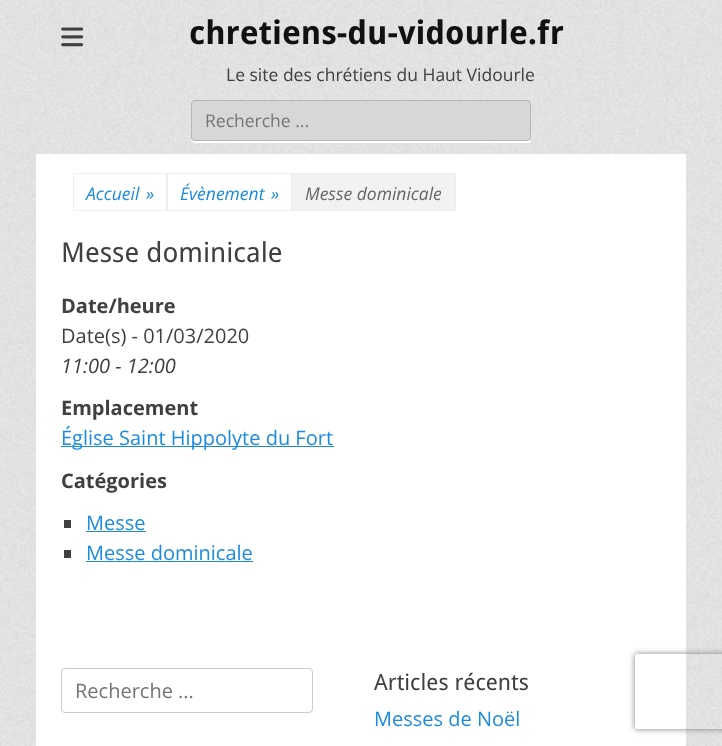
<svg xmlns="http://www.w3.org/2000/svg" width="722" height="746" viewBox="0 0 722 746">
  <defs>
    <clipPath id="clip1"><path d="M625 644H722V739H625ZM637.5 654H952.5C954 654 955 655 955 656.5V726.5C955 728 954 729 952.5 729H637.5C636 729 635 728 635 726.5V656.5C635 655 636 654 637.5 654Z" clip-rule="evenodd"/></clipPath>
    <filter id="blur1" x="-50%" y="-200%" width="200%" height="500%"><feGaussianBlur stdDeviation="3"/></filter>
  </defs>
  <rect width="100%" height="100%" fill="#ffffff"/>
  <image x="0" y="0" width="722" height="746" href="img1.png"/>
  <image x="61" y="27" width="23" height="20" href="img2.png"/>
  <text x="189" y="44" font-family="Droid Sans" font-size="32.5" font-weight="bold" fill="#111111">chretiens-du-vidourle.fr</text>
  <text x="226" y="81" font-family="Open Sans" font-size="17.5" fill="#404040">Le site des chrétiens du Haut Vidourle</text>
  <path d="M191 104V133C191 136 190 143 195 143H529C530 142 531 141 531 139C530 140 529 141 528 141H195C193 141 191 140 191 138Z" fill="#ffffff"/>
  <rect x="191.5" y="100.5" width="339" height="40" rx="3.5" fill="#d7d7d7" stroke="#b6b6b6"/>
  <text x="205" y="127" font-family="Open Sans" font-size="17.5" fill="#757575">Recherche ...</text>
  <rect x="36" y="154" width="650" height="592" fill="#ffffff"/>
  <rect x="73.5" y="173.5" width="94" height="37" fill="none" stroke="#eeeeee"/>
  <text x="86" y="200" font-family="Open Sans" font-size="17.5" font-style="italic" fill="#1b8be0">Accueil</text>
  <text x="146" y="200" font-family="Open Sans" font-size="17.5" font-style="italic" fill="#1b8be0">»</text>
  <rect x="166.5" y="173.5" width="126" height="37" fill="none" stroke="#eeeeee"/>
  <text x="180" y="200" font-family="Open Sans" font-size="17.5" font-style="italic" fill="#1b8be0">Évènement</text>
  <text x="271" y="200" font-family="Open Sans" font-size="17.5" font-style="italic" fill="#1b8be0">»</text>
  <rect x="291.5" y="173.5" width="164" height="37" fill="#f2f2f2" stroke="#eeeeee"/>
  <text x="305" y="200" font-family="Open Sans" font-size="17.5" font-style="italic" fill="#666666">Messe dominicale</text>
  <text x="61" y="262" font-family="Droid Sans" font-size="27.5" fill="#404040">Messe dominicale</text>
  <text x="61" y="313" font-family="Open Sans" font-size="20" font-weight="bold" fill="#404040">Date/heure</text>
  <text x="61" y="343" font-family="Open Sans" font-size="20" fill="#404040">Date(s) - 01/03/2020</text>
  <text x="61" y="373" font-family="Open Sans" font-size="20" font-style="italic" fill="#404040">11:00 - 12:00</text>
  <text x="61" y="415" font-family="Open Sans" font-size="20" font-weight="bold" fill="#404040">Emplacement</text>
  <rect x="61" y="446" width="273" height="1" fill="#1b8be0"/>
  <text x="61" y="445" font-family="Open Sans" font-size="20" fill="#1b8be0">Église Saint Hippolyte du Fort</text>
  <text x="61" y="488" font-family="Open Sans" font-size="20" font-weight="bold" fill="#404040">Catégories</text>
  <rect x="64" y="520" width="7" height="8" fill="#404040"/>
  <text x="86" y="530" font-family="Open Sans" font-size="20" fill="#1b8be0">Messe</text>
  <rect x="86" y="531" width="60" height="1" fill="#1b8be0"/>
  <rect x="64" y="550" width="7" height="8" fill="#404040"/>
  <text x="86" y="560" font-family="Open Sans" font-size="20" fill="#1b8be0">Messe dominicale</text>
  <rect x="86" y="561" width="167" height="1" fill="#1b8be0"/>
  <rect x="61.5" y="668.5" width="251" height="44" rx="3.5" fill="none" stroke="#cccccc"/>
  <text x="75" y="698" font-family="Open Sans" font-size="20" fill="#757575">Recherche ...</text>
  <text x="374" y="690" font-family="Droid Sans" font-size="22.5" fill="#404040">Articles récents</text>
  <text x="374" y="726" font-family="Open Sans" font-size="20" fill="#1b8be0">Messes de Noël</text>
  <g clip-path="url(#clip1)">
    <rect x="635" y="654" width="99" height="75" rx="2.5" fill="#808080" filter="url(#blur1)"/>
  </g>
</svg>
